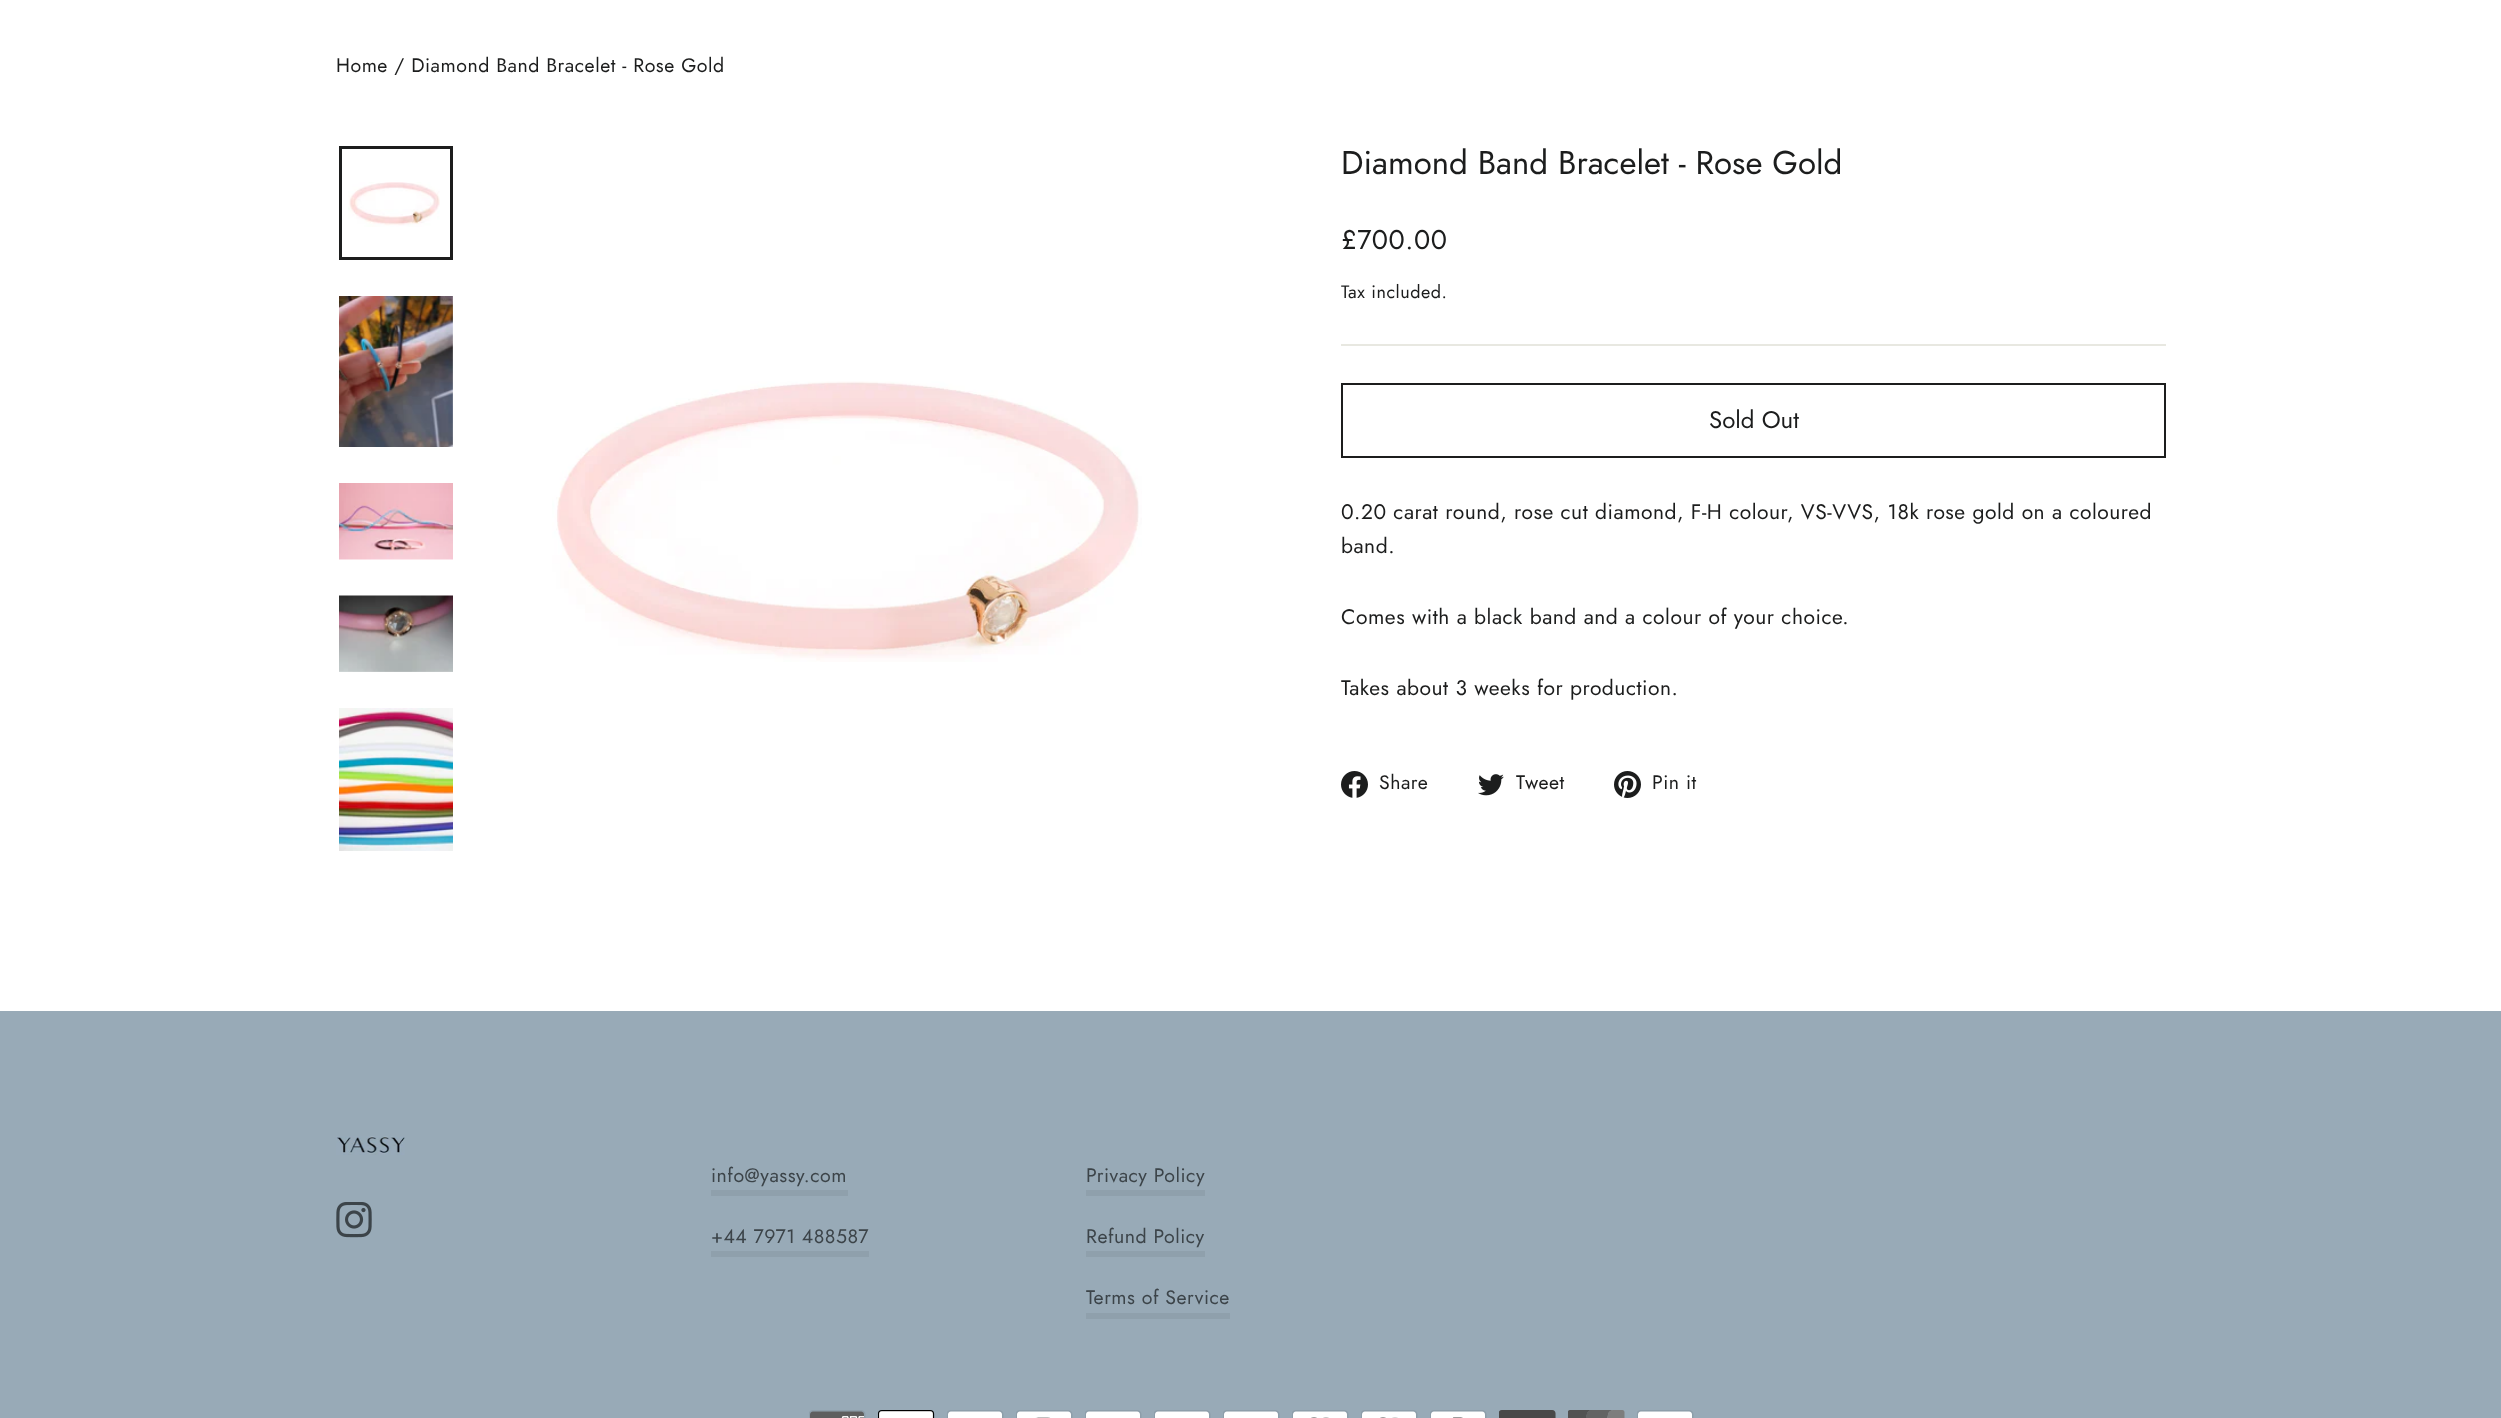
<svg xmlns="http://www.w3.org/2000/svg" width="2501" height="1418" viewBox="0 0 2501 1418">
  <rect width="100%" height="100%" fill="#ffffff"/>
  <text x="336" y="72" font-family="Jost" font-size="19.5" letter-spacing="0.52" fill="#1c1d1d">Home / Diamond Band Bracelet - Rose Gold</text>
  <image x="348" y="182" width="92" height="45" href="img1.png"/>
  <rect x="340.5" y="147.5" width="111" height="111" fill="none" stroke="#1c1d1d" stroke-width="3"/>
  <image x="339" y="296" width="114" height="151" href="img2.png"/>
  <image x="339" y="483" width="114" height="77" href="img3.png"/>
  <image x="339" y="595" width="114" height="77" href="img4.png"/>
  <image x="339" y="708" width="114" height="143" href="img5.png"/>
  <image x="552" y="381" width="590" height="281" href="img6.png"/>
  <text x="1341" y="174" font-family="Jost" font-size="33" fill="#1c1d1d">Diamond Band Bracelet - Rose Gold</text>
  <text x="1341" y="249" font-family="Jost" font-size="27" letter-spacing="0.52" fill="#1c1d1d">£700.00</text>
  <text x="1341" y="298" font-family="Jost" font-size="18" letter-spacing="0.52" fill="#1c1d1d">Tax included.</text>
  <rect x="1341" y="344" width="825" height="2" fill="#e8e8e1"/>
  <rect x="1342" y="384" width="823" height="73" fill="none" stroke="#1c1d1d" stroke-width="2"/>
  <text x="1709" y="428" font-family="Jost" font-size="24" fill="#1c1d1d">Sold Out</text>
  <text x="1341" y="519" font-family="Jost" font-size="21" letter-spacing="0.52" fill="#1c1d1d">0.20 carat round, rose cut diamond, F-H colour, VS-VVS, 18k rose gold on a coloured</text>
  <text x="1341" y="553" font-family="Jost" font-size="21" letter-spacing="0.52" fill="#1c1d1d">band.</text>
  <text x="1341" y="624" font-family="Jost" font-size="21" letter-spacing="0.52" fill="#1c1d1d">Comes with a black band and a colour of your choice.</text>
  <text x="1341" y="695" font-family="Jost" font-size="21" letter-spacing="0.52" fill="#1c1d1d">Takes about 3 weeks for production.</text>
  <image x="1341" y="771" width="27" height="27" href="img7.png"/>
  <text x="1379" y="789" font-family="Jost" font-size="19.5" letter-spacing="0.52" fill="#1c1d1d">Share</text>
  <image x="1478" y="774" width="26" height="22" href="img8.png"/>
  <text x="1516" y="789" font-family="Jost" font-size="19.5" letter-spacing="0.52" fill="#1c1d1d">Tweet</text>
  <image x="1614" y="771" width="27" height="27" href="img9.png"/>
  <text x="1652" y="789" font-family="Jost" font-size="19.5" letter-spacing="0.52" fill="#1c1d1d">Pin it</text>
  <rect x="0" y="1011" width="2501" height="407" fill="#98aab7"/>
  <image x="336" y="1136" width="69" height="19" href="img10.png"/>
  <image x="336" y="1202" width="36" height="36" href="img11.png"/>
  <text x="711" y="1182" font-family="Jost" font-size="19.5" letter-spacing="0.5" fill="#3c4449">info@yassy.com</text>
  <rect x="711" y="1190" width="137" height="6" fill="#8fa0ac"/>
  <text x="711" y="1243" font-family="Jost" font-size="19.5" letter-spacing="0.5" fill="#3c4449">+44 7971 488587</text>
  <rect x="711" y="1251" width="158" height="6" fill="#8fa0ac"/>
  <text x="1086" y="1182" font-family="Jost" font-size="19.5" letter-spacing="0.5" fill="#3c4449">Privacy Policy</text>
  <rect x="1086" y="1190" width="119" height="6" fill="#8fa0ac"/>
  <text x="1086" y="1243" font-family="Jost" font-size="19.5" letter-spacing="0.5" fill="#3c4449">Refund Policy</text>
  <rect x="1086" y="1251" width="119" height="6" fill="#8fa0ac"/>
  <text x="1086" y="1304" font-family="Jost" font-size="19.5" letter-spacing="0.5" fill="#3c4449">Terms of Service</text>
  <rect x="1086" y="1313" width="144" height="6" fill="#8fa0ac"/>
  <image x="809" y="1410" width="57" height="8" href="img12.png"/>
  <image x="878" y="1410" width="57" height="8" href="img13.png"/>
  <image x="947" y="1410" width="57" height="8" href="img14.png"/>
  <image x="1016" y="1410" width="57" height="8" href="img15.png"/>
  <image x="1085" y="1410" width="57" height="8" href="img14.png"/>
  <image x="1154" y="1410" width="57" height="8" href="img14.png"/>
  <image x="1223" y="1410" width="57" height="8" href="img14.png"/>
  <image x="1292" y="1410" width="57" height="8" href="img16.png"/>
  <image x="1361" y="1410" width="57" height="8" href="img17.png"/>
  <image x="1430" y="1410" width="57" height="8" href="img18.png"/>
  <image x="1499" y="1410" width="57" height="8" href="img19.png"/>
  <image x="1568" y="1410" width="57" height="8" href="img20.png"/>
  <image x="1637" y="1410" width="57" height="8" href="img14.png"/>
</svg>
